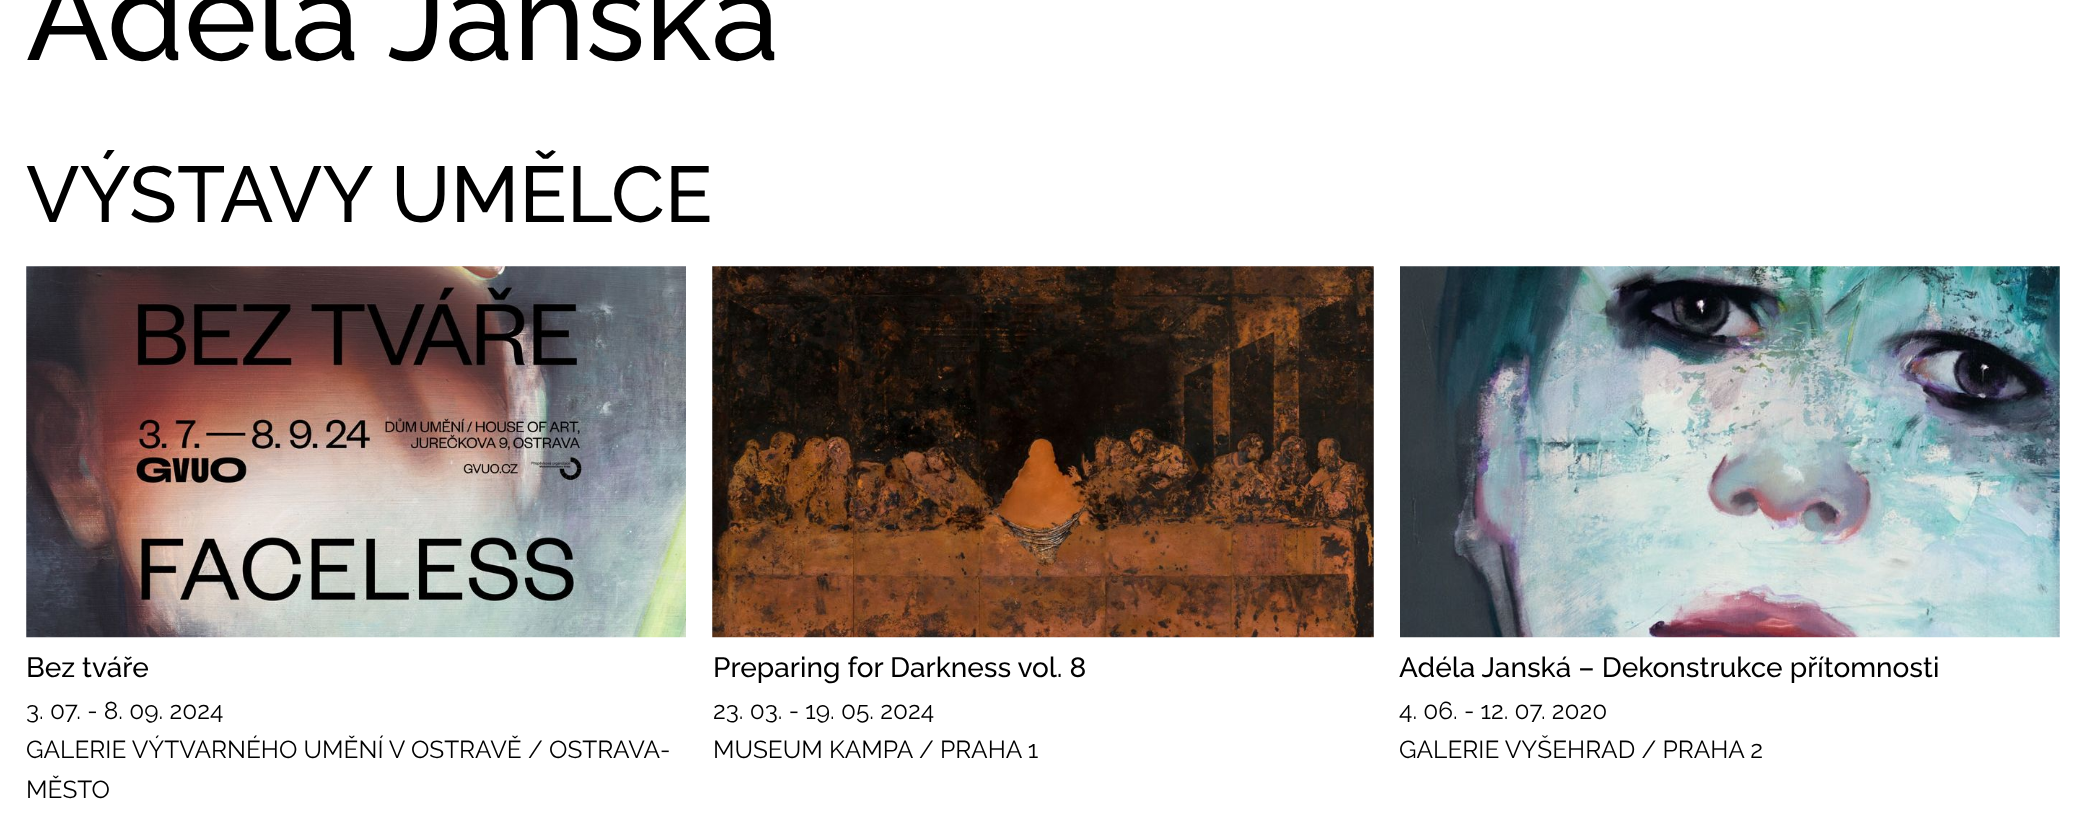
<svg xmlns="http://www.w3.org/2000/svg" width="2085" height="840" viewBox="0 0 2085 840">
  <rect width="100%" height="100%" fill="#ffffff"/>
  <text x="26" y="60" font-family="Raleway" font-size="122.5" font-weight="500" fill="#000000">Adéla Janská</text>
  <text x="26" y="222" font-family="Raleway" font-size="78.75" font-weight="500" fill="#000000">VÝSTAVY UMĚLCE</text>
  <image x="26" y="266" width="660" height="372" href="img1.png"/>
  <text x="26" y="677" font-family="Raleway" font-size="28" font-weight="500" fill="#000000">Bez tváře</text>
  <text x="26" y="719" font-family="Raleway" font-size="24.5" fill="#000000">3. 07. - 8. 09. 2024</text>
  <text x="26" y="758" font-family="Raleway" font-size="24.5" fill="#000000">GALERIE VÝTVARNÉHO UMĚNÍ V OSTRAVĚ / OSTRAVA-</text>
  <text x="26" y="798" font-family="Raleway" font-size="24.5" fill="#000000">MĚSTO</text>
  <image x="712" y="266" width="662" height="372" href="img2.png"/>
  <text x="713" y="677" font-family="Raleway" font-size="28" font-weight="500" fill="#000000">Preparing for Darkness vol. 8</text>
  <text x="713" y="719" font-family="Raleway" font-size="24.5" fill="#000000">23. 03. - 19. 05. 2024</text>
  <text x="713" y="758" font-family="Raleway" font-size="24.5" fill="#000000">MUSEUM KAMPA / PRAHA 1</text>
  <image x="1400" y="266" width="660" height="372" href="img3.png"/>
  <text x="1399" y="677" font-family="Raleway" font-size="28" font-weight="500" fill="#000000">Adéla Janská – Dekonstrukce přítomnosti</text>
  <text x="1399" y="719" font-family="Raleway" font-size="24.5" fill="#000000">4. 06. - 12. 07. 2020</text>
  <text x="1399" y="758" font-family="Raleway" font-size="24.5" fill="#000000">GALERIE VYŠEHRAD / PRAHA 2</text>
</svg>
